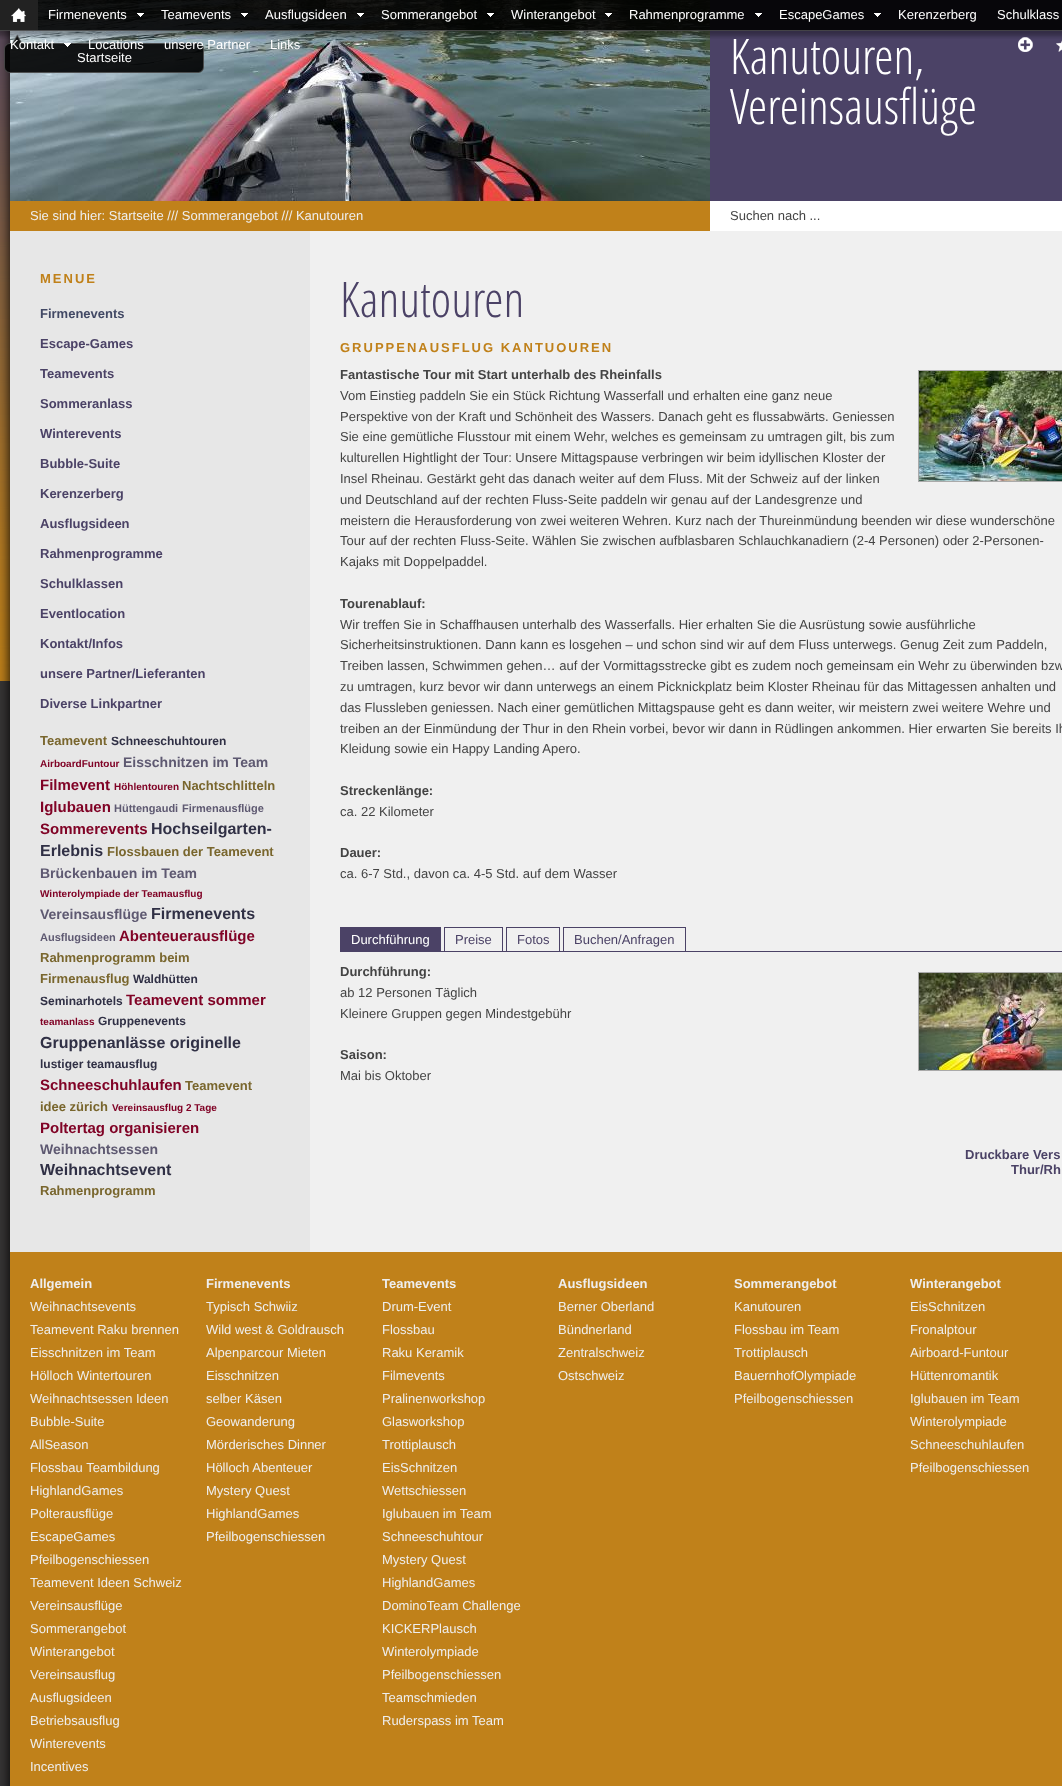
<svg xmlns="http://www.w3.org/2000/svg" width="1062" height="1786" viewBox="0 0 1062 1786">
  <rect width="100%" height="100%" fill="#373535"/>
  <image x="0" y="30" width="10" height="651" href="img1.png"/>
  <image x="0" y="30" width="1062" height="1756" href="img15.png"/>
  <image x="10" y="0" width="700" height="201" href="img16.png"/>
  <rect x="710" y="0" width="352" height="201" fill="#4b4266"/>
  <image x="0" y="0" width="1062" height="39" href="img2.png"/>
  <image x="137" y="13" width="7" height="4" href="img3.png"/>
  <text x="48" y="19" font-family="Liberation Sans" font-size="13" fill="#ffffff">Firmenevents</text>
  <image x="241" y="13" width="7" height="4" href="img4.png"/>
  <text x="161" y="19" font-family="Liberation Sans" font-size="13" fill="#ffffff">Teamevents</text>
  <image x="357" y="13" width="7" height="4" href="img5.png"/>
  <text x="265" y="19" font-family="Liberation Sans" font-size="13" fill="#ffffff">Ausflugsideen</text>
  <image x="487" y="13" width="7" height="4" href="img6.png"/>
  <text x="381" y="19" font-family="Liberation Sans" font-size="13" fill="#ffffff">Sommerangebot</text>
  <image x="605" y="13" width="7" height="4" href="img7.png"/>
  <text x="511" y="19" font-family="Liberation Sans" font-size="13" fill="#ffffff">Winterangebot</text>
  <image x="755" y="13" width="7" height="4" href="img8.png"/>
  <text x="629" y="19" font-family="Liberation Sans" font-size="13" fill="#ffffff">Rahmenprogramme</text>
  <image x="874" y="13" width="7" height="4" href="img9.png"/>
  <text x="779" y="19" font-family="Liberation Sans" font-size="13" fill="#ffffff">EscapeGames</text>
  <text x="898" y="19" font-family="Liberation Sans" font-size="13" fill="#ffffff">Kerenzerberg</text>
  <text x="997" y="19" font-family="Liberation Sans" font-size="13" fill="#ffffff">Schulklass</text>
  <image x="4" y="34" width="200" height="39" href="img14.png"/>
  <image x="64" y="43" width="7" height="4" href="img10.png"/>
  <text x="10" y="49" font-family="Liberation Sans" font-size="13" fill="#ffffff">Kontakt</text>
  <text x="88" y="49" font-family="Liberation Sans" font-size="13" fill="#ffffff">Locations</text>
  <text x="164" y="49" font-family="Liberation Sans" font-size="13" fill="#ffffff">unsere Partner</text>
  <text x="270" y="49" font-family="Liberation Sans" font-size="13" fill="#ffffff">Links</text>
  <image x="1018" y="37" width="15" height="15" href="img11.png"/>
  <image x="1056" y="40" width="6" height="12" href="img12.png"/>
  <rect x="0" y="0" width="38" height="30" fill="#222222"/>
  <image x="11" y="8" width="15" height="14" href="img13.png"/>
  <text x="77" y="62" font-family="Liberation Sans" font-size="13" fill="#ffffff">Startseite</text>
  <text x="730" y="74" font-family="Open Sans" font-size="50" font-weight="300" fill="#ffffff">Kanutouren,</text>
  <text x="730" y="124" font-family="Open Sans" font-size="50" font-weight="300" fill="#ffffff">Vereinsausflüge</text>
  <rect x="10" y="201" width="700" height="30" fill="#c0811a"/>
  <text x="30" y="220" font-family="Liberation Sans" font-size="13" fill="#eeeeee">Sie sind hier: Startseite /// Sommerangebot /// Kanutouren</text>
  <rect x="710" y="201" width="352" height="30" fill="#ffffff"/>
  <text x="730" y="220" font-family="Liberation Sans" font-size="13" fill="#444444">Suchen nach ...</text>
  <text x="40" y="283" font-family="Liberation Sans" font-size="13" font-weight="bold" letter-spacing="2" fill="#c0811a">MENUE</text>
  <text x="40" y="318" font-family="Liberation Sans" font-size="13" font-weight="bold" fill="#424965">Firmenevents</text>
  <text x="40" y="348" font-family="Liberation Sans" font-size="13" font-weight="bold" fill="#4b4266">Escape-Games</text>
  <text x="40" y="378" font-family="Liberation Sans" font-size="13" font-weight="bold" fill="#4b4266">Teamevents</text>
  <text x="40" y="408" font-family="Liberation Sans" font-size="13" font-weight="bold" fill="#4b4266">Sommeranlass</text>
  <text x="40" y="438" font-family="Liberation Sans" font-size="13" font-weight="bold" fill="#4b4266">Winterevents</text>
  <text x="40" y="468" font-family="Liberation Sans" font-size="13" font-weight="bold" fill="#4b4266">Bubble-Suite</text>
  <text x="40" y="498" font-family="Liberation Sans" font-size="13" font-weight="bold" fill="#4b4266">Kerenzerberg</text>
  <text x="40" y="528" font-family="Liberation Sans" font-size="13" font-weight="bold" fill="#4b4266">Ausflugsideen</text>
  <text x="40" y="558" font-family="Liberation Sans" font-size="13" font-weight="bold" fill="#4b4266">Rahmenprogramme</text>
  <text x="40" y="588" font-family="Liberation Sans" font-size="13" font-weight="bold" fill="#4b4266">Schulklassen</text>
  <text x="40" y="618" font-family="Liberation Sans" font-size="13" font-weight="bold" fill="#4b4266">Eventlocation</text>
  <text x="40" y="648" font-family="Liberation Sans" font-size="13" font-weight="bold" fill="#4b4266">Kontakt/Infos</text>
  <text x="40" y="678" font-family="Liberation Sans" font-size="13" font-weight="bold" fill="#4b4266">unsere Partner/Lieferanten</text>
  <text x="40" y="708" font-family="Liberation Sans" font-size="13" font-weight="bold" fill="#4b4266">Diverse Linkpartner</text>
  <text x="40" y="745" font-family="Liberation Sans" font-size="13" font-weight="bold" fill="#79662d">Teamevent</text>
  <text x="111" y="745" font-family="Liberation Sans" font-size="12" font-weight="bold" fill="#303045">Schneeschuhtouren</text>
  <text x="40" y="767" font-family="Liberation Sans" font-size="10" font-weight="bold" fill="#800326">AirboardFuntour</text>
  <text x="123" y="767" font-family="Liberation Sans" font-size="14" font-weight="bold" fill="#5e5971">Eisschnitzen im Team</text>
  <text x="40" y="790" font-family="Liberation Sans" font-size="15" font-weight="bold" fill="#800326">Filmevent</text>
  <text x="114" y="790" font-family="Liberation Sans" font-size="10" font-weight="bold" fill="#800326">Höhlentouren</text>
  <text x="182" y="790" font-family="Liberation Sans" font-size="13" font-weight="bold" fill="#79662d">Nachtschlitteln</text>
  <text x="40" y="812" font-family="Liberation Sans" font-size="15" font-weight="bold" fill="#800326">Iglubauen</text>
  <text x="114" y="812" font-family="Liberation Sans" font-size="11" font-weight="bold" fill="#5e5971">Hüttengaudi</text>
  <text x="182" y="812" font-family="Liberation Sans" font-size="11" font-weight="bold" fill="#5e5971">Firmenausflüge</text>
  <text x="40" y="834" font-family="Liberation Sans" font-size="15" font-weight="bold" fill="#800326">Sommerevents</text>
  <text x="151" y="834" font-family="Liberation Sans" font-size="16" font-weight="bold" fill="#303045">Hochseilgarten-</text>
  <text x="40" y="856" font-family="Liberation Sans" font-size="16" font-weight="bold" fill="#303045">Erlebnis</text>
  <text x="107" y="856" font-family="Liberation Sans" font-size="13" font-weight="bold" fill="#79662d">Flossbauen der Teamevent</text>
  <text x="40" y="878" font-family="Liberation Sans" font-size="14" font-weight="bold" fill="#5e5971">Brückenbauen im Team</text>
  <text x="40" y="897" font-family="Liberation Sans" font-size="10" font-weight="bold" fill="#800326">Winterolympiade der Teamausflug</text>
  <text x="40" y="919" font-family="Liberation Sans" font-size="14" font-weight="bold" fill="#5e5971">Vereinsausflüge</text>
  <text x="151" y="919" font-family="Liberation Sans" font-size="16" font-weight="bold" fill="#303045">Firmenevents</text>
  <text x="40" y="941" font-family="Liberation Sans" font-size="11" font-weight="bold" fill="#5e5971">Ausflugsideen</text>
  <text x="119" y="941" font-family="Liberation Sans" font-size="15" font-weight="bold" fill="#800326">Abenteuerausflüge</text>
  <text x="40" y="962" font-family="Liberation Sans" font-size="13" font-weight="bold" fill="#79662d">Rahmenprogramm beim</text>
  <text x="40" y="983" font-family="Liberation Sans" font-size="13" font-weight="bold" fill="#79662d">Firmenausflug</text>
  <text x="133" y="983" font-family="Liberation Sans" font-size="12" font-weight="bold" fill="#303045">Waldhütten</text>
  <text x="40" y="1005" font-family="Liberation Sans" font-size="12" font-weight="bold" fill="#303045">Seminarhotels</text>
  <text x="126" y="1005" font-family="Liberation Sans" font-size="15" font-weight="bold" fill="#800326">Teamevent sommer</text>
  <text x="40" y="1025" font-family="Liberation Sans" font-size="10" font-weight="bold" fill="#800326">teamanlass</text>
  <text x="98" y="1025" font-family="Liberation Sans" font-size="12" font-weight="bold" fill="#303045">Gruppenevents</text>
  <text x="40" y="1048" font-family="Liberation Sans" font-size="16" font-weight="bold" fill="#303045">Gruppenanlässe originelle</text>
  <text x="40" y="1068" font-family="Liberation Sans" font-size="12" font-weight="bold" fill="#303045">lustiger teamausflug</text>
  <text x="40" y="1090" font-family="Liberation Sans" font-size="15" font-weight="bold" fill="#800326">Schneeschuhlaufen</text>
  <text x="185" y="1090" font-family="Liberation Sans" font-size="13" font-weight="bold" fill="#79662d">Teamevent</text>
  <text x="40" y="1111" font-family="Liberation Sans" font-size="13" font-weight="bold" fill="#79662d">idee zürich</text>
  <text x="112" y="1111" font-family="Liberation Sans" font-size="10" font-weight="bold" fill="#800326">Vereinsausflug 2 Tage</text>
  <text x="40" y="1133" font-family="Liberation Sans" font-size="15" font-weight="bold" fill="#800326">Poltertag organisieren</text>
  <text x="40" y="1154" font-family="Liberation Sans" font-size="14" font-weight="bold" fill="#5e5971">Weihnachtsessen</text>
  <text x="40" y="1175" font-family="Liberation Sans" font-size="16" font-weight="bold" fill="#303045">Weihnachtsevent</text>
  <text x="40" y="1195" font-family="Liberation Sans" font-size="13" font-weight="bold" fill="#79662d">Rahmenprogramm</text>
  <text x="340" y="317" font-family="Open Sans" font-size="50" font-weight="300" fill="#4b4266">Kanutouren</text>
  <text x="340" y="352" font-family="Liberation Sans" font-size="13" font-weight="bold" letter-spacing="2" fill="#c0811a">GRUPPENAUSFLUG KANTUOUREN</text>
  <text x="340" y="379" font-family="Liberation Sans" font-size="13" font-weight="bold" fill="#444444">Fantastische Tour mit Start unterhalb des Rheinfalls</text>
  <text x="340" y="400" font-family="Liberation Sans" font-size="13" fill="#444444">Vom Einstieg paddeln Sie ein Stück Richtung Wasserfall und erhalten eine ganz neue</text>
  <text x="340" y="421" font-family="Liberation Sans" font-size="13" fill="#444444">Perspektive von der Kraft und Schönheit des Wassers. Danach geht es flussabwärts. Geniessen</text>
  <text x="340" y="441" font-family="Liberation Sans" font-size="13" fill="#444444">Sie eine gemütliche Flusstour mit einem Wehr, welches es gemeinsam zu umtragen gilt, bis zum</text>
  <text x="340" y="462" font-family="Liberation Sans" font-size="13" fill="#444444">kulturellen Hightlight der Tour: Unsere Mittagspause verbringen wir beim idyllischen Kloster der</text>
  <text x="340" y="483" font-family="Liberation Sans" font-size="13" fill="#444444">Insel Rheinau. Gestärkt geht das danach weiter auf dem Fluss. Mit der Schweiz auf der linken</text>
  <text x="340" y="504" font-family="Liberation Sans" font-size="13" fill="#444444">und Deutschland auf der rechten Fluss-Seite paddeln wir genau auf der Landesgrenze und</text>
  <text x="340" y="525" font-family="Liberation Sans" font-size="13" fill="#444444">meistern die Herausforderung von zwei weiteren Wehren. Kurz nach der Thureinmündung beenden wir diese wunderschöne</text>
  <text x="340" y="545" font-family="Liberation Sans" font-size="13" fill="#444444">Tour auf der rechten Fluss-Seite. Wählen Sie zwischen aufblasbaren Schlauchkanadiern (2-4 Personen) oder 2-Personen-</text>
  <text x="340" y="566" font-family="Liberation Sans" font-size="13" fill="#444444">Kajaks mit Doppelpaddel.</text>
  <text x="340" y="608" font-family="Liberation Sans" font-size="13" font-weight="bold" fill="#444444">Tourenablauf:</text>
  <text x="340" y="629" font-family="Liberation Sans" font-size="13" fill="#444444">Wir treffen Sie in Schaffhausen unterhalb des Wasserfalls. Hier erhalten Sie die Ausrüstung sowie ausführliche</text>
  <text x="340" y="649" font-family="Liberation Sans" font-size="13" fill="#444444">Sicherheitsinstruktionen. Dann kann es losgehen – und schon sind wir auf dem Fluss unterwegs. Genug Zeit zum Paddeln,</text>
  <text x="340" y="670" font-family="Liberation Sans" font-size="13" fill="#444444">Treiben lassen, Schwimmen gehen… auf der Vormittagsstrecke gibt es zudem noch gemeinsam ein Wehr zu überwinden bzw</text>
  <text x="340" y="691" font-family="Liberation Sans" font-size="13" fill="#444444">zu umtragen, kurz bevor wir dann unterwegs an einem Picknickplatz beim Kloster Rheinau für das Mittagessen anhalten und</text>
  <text x="340" y="712" font-family="Liberation Sans" font-size="13" fill="#444444">das Flussleben geniessen. Nach einer gemütlichen Mittagspause geht es dann weiter, wir meistern zwei weitere Wehre und</text>
  <text x="340" y="733" font-family="Liberation Sans" font-size="13" fill="#444444">treiben an der Einmündung der Thur in den Rhein vorbei, bevor wir dann in Rüdlingen ankommen. Hier erwarten Sie bereits Ih</text>
  <text x="340" y="753" font-family="Liberation Sans" font-size="13" fill="#444444">Kleidung sowie ein Happy Landing Apero.</text>
  <text x="340" y="795" font-family="Liberation Sans" font-size="13" font-weight="bold" fill="#444444">Streckenlänge:</text>
  <text x="340" y="816" font-family="Liberation Sans" font-size="13" fill="#444444">ca. 22 Kilometer</text>
  <text x="340" y="857" font-family="Liberation Sans" font-size="13" font-weight="bold" fill="#444444">Dauer:</text>
  <text x="340" y="878" font-family="Liberation Sans" font-size="13" fill="#444444">ca. 6-7 Std., davon ca. 4-5 Std. auf dem Wasser</text>
  <rect x="918.5" y="370.5" width="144" height="111" fill="none" stroke="#aaaaaa"/>
  <image x="919" y="371" width="143" height="110" href="img17.png"/>
  <rect x="340" y="951" width="722" height="1" fill="#4b4266"/>
  <rect x="340" y="927" width="101" height="24" fill="#4b4266"/>
  <text x="351" y="944" font-family="Liberation Sans" font-size="13" fill="#ffffff">Durchführung</text>
  <rect x="444" y="927" width="59" height="1" fill="#4b4266"/>
  <rect x="502" y="927" width="1" height="24" fill="#4b4266"/>
  <rect x="444" y="927" width="1" height="24" fill="#4b4266"/>
  <text x="455" y="944" font-family="Liberation Sans" font-size="13" fill="#4b4266">Preise</text>
  <rect x="506" y="927" width="54" height="1" fill="#4b4266"/>
  <rect x="559" y="927" width="1" height="24" fill="#4b4266"/>
  <rect x="506" y="927" width="1" height="24" fill="#4b4266"/>
  <text x="517" y="944" font-family="Liberation Sans" font-size="13" fill="#4b4266">Fotos</text>
  <rect x="563" y="927" width="123" height="1" fill="#4b4266"/>
  <rect x="685" y="927" width="1" height="24" fill="#4b4266"/>
  <rect x="563" y="927" width="1" height="24" fill="#4b4266"/>
  <text x="574" y="944" font-family="Liberation Sans" font-size="13" fill="#4b4266">Buchen/Anfragen</text>
  <text x="340" y="976" font-family="Liberation Sans" font-size="13" font-weight="bold" fill="#444444">Durchführung:</text>
  <text x="340" y="997" font-family="Liberation Sans" font-size="13" fill="#444444">ab 12 Personen Täglich</text>
  <text x="340" y="1018" font-family="Liberation Sans" font-size="13" fill="#444444">Kleinere Gruppen gegen Mindestgebühr</text>
  <text x="340" y="1059" font-family="Liberation Sans" font-size="13" font-weight="bold" fill="#444444">Saison:</text>
  <text x="340" y="1080" font-family="Liberation Sans" font-size="13" fill="#444444">Mai bis Oktober</text>
  <rect x="918.5" y="972.5" width="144" height="98" fill="none" stroke="#aaaaaa"/>
  <image x="919" y="973" width="143" height="97" href="img18.png"/>
  <text x="965" y="1159" font-family="Liberation Sans" font-size="13" font-weight="bold" fill="#4b4266">Druckbare Vers</text>
  <text x="1011" y="1174" font-family="Liberation Sans" font-size="13" font-weight="bold" fill="#4b4266">Thur/Rh</text>
  <rect x="10" y="1252" width="1052" height="534" fill="#c0811a"/>
  <text x="30" y="1288" font-family="Liberation Sans" font-size="13" font-weight="bold" fill="#eeeeee">Allgemein</text>
  <text x="30" y="1311" font-family="Liberation Sans" font-size="13" fill="#eeeeee">Weihnachtsevents</text>
  <text x="30" y="1334" font-family="Liberation Sans" font-size="13" fill="#eeeeee">Teamevent Raku brennen</text>
  <text x="30" y="1357" font-family="Liberation Sans" font-size="13" fill="#eeeeee">Eisschnitzen im Team</text>
  <text x="30" y="1380" font-family="Liberation Sans" font-size="13" fill="#eeeeee">Hölloch Wintertouren</text>
  <text x="30" y="1403" font-family="Liberation Sans" font-size="13" fill="#eeeeee">Weihnachtsessen Ideen</text>
  <text x="30" y="1426" font-family="Liberation Sans" font-size="13" fill="#eeeeee">Bubble-Suite</text>
  <text x="30" y="1449" font-family="Liberation Sans" font-size="13" fill="#eeeeee">AllSeason</text>
  <text x="30" y="1472" font-family="Liberation Sans" font-size="13" fill="#eeeeee">Flossbau Teambildung</text>
  <text x="30" y="1495" font-family="Liberation Sans" font-size="13" fill="#eeeeee">HighlandGames</text>
  <text x="30" y="1518" font-family="Liberation Sans" font-size="13" fill="#eeeeee">Polterausflüge</text>
  <text x="30" y="1541" font-family="Liberation Sans" font-size="13" fill="#eeeeee">EscapeGames</text>
  <text x="30" y="1564" font-family="Liberation Sans" font-size="13" fill="#eeeeee">Pfeilbogenschiessen</text>
  <text x="30" y="1587" font-family="Liberation Sans" font-size="13" fill="#eeeeee">Teamevent Ideen Schweiz</text>
  <text x="30" y="1610" font-family="Liberation Sans" font-size="13" fill="#eeeeee">Vereinsausflüge</text>
  <text x="30" y="1633" font-family="Liberation Sans" font-size="13" fill="#eeeeee">Sommerangebot</text>
  <text x="30" y="1656" font-family="Liberation Sans" font-size="13" fill="#eeeeee">Winterangebot</text>
  <text x="30" y="1679" font-family="Liberation Sans" font-size="13" fill="#eeeeee">Vereinsausflug</text>
  <text x="30" y="1702" font-family="Liberation Sans" font-size="13" fill="#eeeeee">Ausflugsideen</text>
  <text x="30" y="1725" font-family="Liberation Sans" font-size="13" fill="#eeeeee">Betriebsausflug</text>
  <text x="30" y="1748" font-family="Liberation Sans" font-size="13" fill="#eeeeee">Winterevents</text>
  <text x="30" y="1771" font-family="Liberation Sans" font-size="13" fill="#eeeeee">Incentives</text>
  <text x="206" y="1288" font-family="Liberation Sans" font-size="13" font-weight="bold" fill="#eeeeee">Firmenevents</text>
  <text x="206" y="1311" font-family="Liberation Sans" font-size="13" fill="#eeeeee">Typisch Schwiiz</text>
  <text x="206" y="1334" font-family="Liberation Sans" font-size="13" fill="#eeeeee">Wild west &amp; Goldrausch</text>
  <text x="206" y="1357" font-family="Liberation Sans" font-size="13" fill="#eeeeee">Alpenparcour Mieten</text>
  <text x="206" y="1380" font-family="Liberation Sans" font-size="13" fill="#eeeeee">Eisschnitzen</text>
  <text x="206" y="1403" font-family="Liberation Sans" font-size="13" fill="#eeeeee">selber Käsen</text>
  <text x="206" y="1426" font-family="Liberation Sans" font-size="13" fill="#eeeeee">Geowanderung</text>
  <text x="206" y="1449" font-family="Liberation Sans" font-size="13" fill="#eeeeee">Mörderisches Dinner</text>
  <text x="206" y="1472" font-family="Liberation Sans" font-size="13" fill="#eeeeee">Hölloch Abenteuer</text>
  <text x="206" y="1495" font-family="Liberation Sans" font-size="13" fill="#eeeeee">Mystery Quest</text>
  <text x="206" y="1518" font-family="Liberation Sans" font-size="13" fill="#eeeeee">HighlandGames</text>
  <text x="206" y="1541" font-family="Liberation Sans" font-size="13" fill="#eeeeee">Pfeilbogenschiessen</text>
  <text x="382" y="1288" font-family="Liberation Sans" font-size="13" font-weight="bold" fill="#eeeeee">Teamevents</text>
  <text x="382" y="1311" font-family="Liberation Sans" font-size="13" fill="#eeeeee">Drum-Event</text>
  <text x="382" y="1334" font-family="Liberation Sans" font-size="13" fill="#eeeeee">Flossbau</text>
  <text x="382" y="1357" font-family="Liberation Sans" font-size="13" fill="#eeeeee">Raku Keramik</text>
  <text x="382" y="1380" font-family="Liberation Sans" font-size="13" fill="#eeeeee">Filmevents</text>
  <text x="382" y="1403" font-family="Liberation Sans" font-size="13" fill="#eeeeee">Pralinenworkshop</text>
  <text x="382" y="1426" font-family="Liberation Sans" font-size="13" fill="#eeeeee">Glasworkshop</text>
  <text x="382" y="1449" font-family="Liberation Sans" font-size="13" fill="#eeeeee">Trottiplausch</text>
  <text x="382" y="1472" font-family="Liberation Sans" font-size="13" fill="#eeeeee">EisSchnitzen</text>
  <text x="382" y="1495" font-family="Liberation Sans" font-size="13" fill="#eeeeee">Wettschiessen</text>
  <text x="382" y="1518" font-family="Liberation Sans" font-size="13" fill="#eeeeee">Iglubauen im Team</text>
  <text x="382" y="1541" font-family="Liberation Sans" font-size="13" fill="#eeeeee">Schneeschuhtour</text>
  <text x="382" y="1564" font-family="Liberation Sans" font-size="13" fill="#eeeeee">Mystery Quest</text>
  <text x="382" y="1587" font-family="Liberation Sans" font-size="13" fill="#eeeeee">HighlandGames</text>
  <text x="382" y="1610" font-family="Liberation Sans" font-size="13" fill="#eeeeee">DominoTeam Challenge</text>
  <text x="382" y="1633" font-family="Liberation Sans" font-size="13" fill="#eeeeee">KICKERPlausch</text>
  <text x="382" y="1656" font-family="Liberation Sans" font-size="13" fill="#eeeeee">Winterolympiade</text>
  <text x="382" y="1679" font-family="Liberation Sans" font-size="13" fill="#eeeeee">Pfeilbogenschiessen</text>
  <text x="382" y="1702" font-family="Liberation Sans" font-size="13" fill="#eeeeee">Teamschmieden</text>
  <text x="382" y="1725" font-family="Liberation Sans" font-size="13" fill="#eeeeee">Ruderspass im Team</text>
  <text x="558" y="1288" font-family="Liberation Sans" font-size="13" font-weight="bold" fill="#eeeeee">Ausflugsideen</text>
  <text x="558" y="1311" font-family="Liberation Sans" font-size="13" fill="#eeeeee">Berner Oberland</text>
  <text x="558" y="1334" font-family="Liberation Sans" font-size="13" fill="#eeeeee">Bündnerland</text>
  <text x="558" y="1357" font-family="Liberation Sans" font-size="13" fill="#eeeeee">Zentralschweiz</text>
  <text x="558" y="1380" font-family="Liberation Sans" font-size="13" fill="#eeeeee">Ostschweiz</text>
  <text x="734" y="1288" font-family="Liberation Sans" font-size="13" font-weight="bold" fill="#eeeeee">Sommerangebot</text>
  <text x="734" y="1311" font-family="Liberation Sans" font-size="13" fill="#eeeeee">Kanutouren</text>
  <text x="734" y="1334" font-family="Liberation Sans" font-size="13" fill="#eeeeee">Flossbau im Team</text>
  <text x="734" y="1357" font-family="Liberation Sans" font-size="13" fill="#eeeeee">Trottiplausch</text>
  <text x="734" y="1380" font-family="Liberation Sans" font-size="13" fill="#eeeeee">BauernhofOlympiade</text>
  <text x="734" y="1403" font-family="Liberation Sans" font-size="13" fill="#eeeeee">Pfeilbogenschiessen</text>
  <text x="910" y="1288" font-family="Liberation Sans" font-size="13" font-weight="bold" fill="#eeeeee">Winterangebot</text>
  <text x="910" y="1311" font-family="Liberation Sans" font-size="13" fill="#eeeeee">EisSchnitzen</text>
  <text x="910" y="1334" font-family="Liberation Sans" font-size="13" fill="#eeeeee">Fronalptour</text>
  <text x="910" y="1357" font-family="Liberation Sans" font-size="13" fill="#eeeeee">Airboard-Funtour</text>
  <text x="910" y="1380" font-family="Liberation Sans" font-size="13" fill="#eeeeee">Hüttenromantik</text>
  <text x="910" y="1403" font-family="Liberation Sans" font-size="13" fill="#eeeeee">Iglubauen im Team</text>
  <text x="910" y="1426" font-family="Liberation Sans" font-size="13" fill="#eeeeee">Winterolympiade</text>
  <text x="910" y="1449" font-family="Liberation Sans" font-size="13" fill="#eeeeee">Schneeschuhlaufen</text>
  <text x="910" y="1472" font-family="Liberation Sans" font-size="13" fill="#eeeeee">Pfeilbogenschiessen</text>
</svg>
